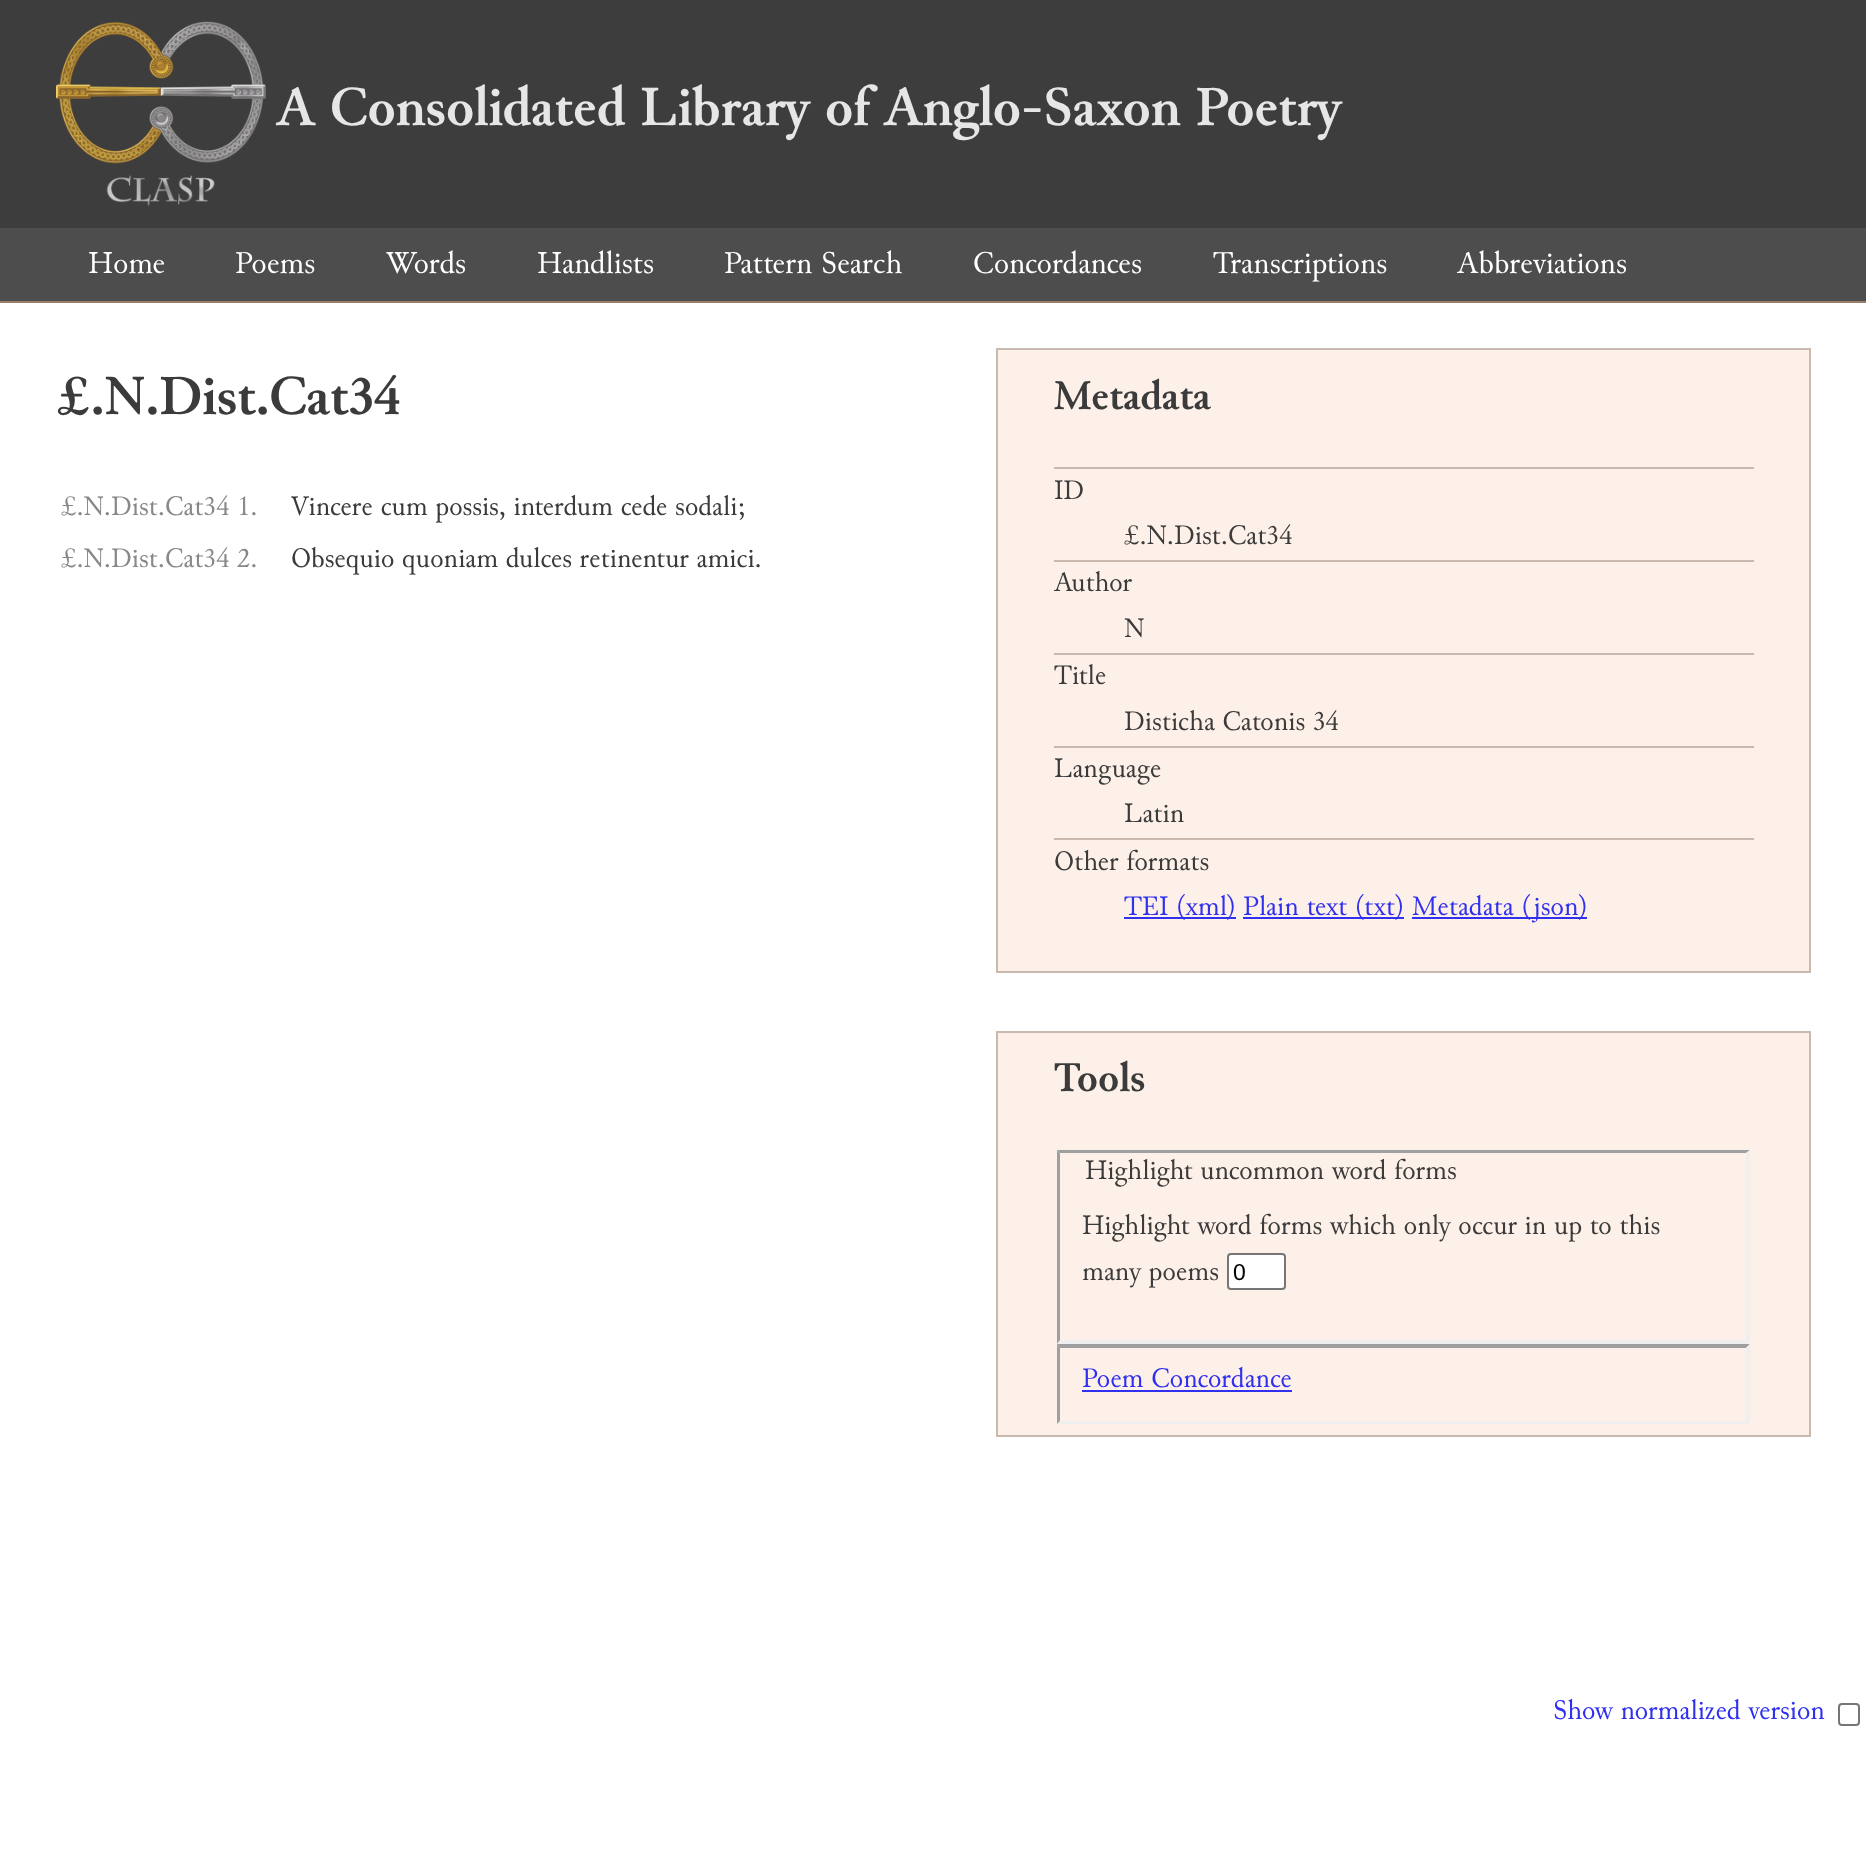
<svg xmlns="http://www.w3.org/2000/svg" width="1866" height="1854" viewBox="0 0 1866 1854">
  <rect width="100%" height="100%" fill="#ffffff"/>
  <rect x="0" y="0" width="1866" height="228" fill="#3d3d3d"/>
  <image x="56" y="21" width="210" height="185" href="img1.png"/>
  <text x="277" y="125" font-family="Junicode" font-size="56" font-weight="bold" fill="#e6e6e6">A Consolidated Library of Anglo-Saxon Poetry</text>
  <rect x="0" y="228" width="1866" height="73" fill="#4d4d4d"/>
  <rect x="0" y="301" width="1866" height="2" fill="#9c7e68"/>
  <text x="88" y="273" font-family="Junicode" font-size="31.5" fill="#ffffff">Home</text>
  <text x="235" y="273" font-family="Junicode" font-size="31.5" fill="#ffffff">Poems</text>
  <text x="386" y="273" font-family="Junicode" font-size="31.5" fill="#ffffff">Words</text>
  <text x="537" y="273" font-family="Junicode" font-size="31.5" fill="#ffffff">Handlists</text>
  <text x="724" y="273" font-family="Junicode" font-size="31.5" fill="#ffffff">Pattern Search</text>
  <text x="973" y="273" font-family="Junicode" font-size="31.5" fill="#ffffff">Concordances</text>
  <text x="1213" y="273" font-family="Junicode" font-size="31.5" fill="#ffffff">Transcriptions</text>
  <text x="1457" y="273" font-family="Junicode" font-size="31.5" fill="#ffffff">Abbreviations</text>
  <text x="56" y="414" font-family="Junicode" font-size="56" font-weight="bold" fill="#3b3b3b">£.N.Dist.Cat34</text>
  <text x="61" y="515" font-family="Junicode" font-size="28" fill="#888888">£.N.Dist.Cat34 1.</text>
  <text x="291" y="515" font-family="Junicode" font-size="28" fill="#3b3b3b">Vincere cum possis, interdum cede sodali;</text>
  <text x="61" y="567" font-family="Junicode" font-size="28" fill="#888888">£.N.Dist.Cat34 2.</text>
  <text x="291" y="567" font-family="Junicode" font-size="28" fill="#3b3b3b">Obsequio quoniam dulces retinentur amici.</text>
  <text x="1553" y="1719" font-family="Junicode" font-size="28" fill="#3030f0">Show normalized version</text>
  <rect x="1839" y="1704" width="20" height="21" rx="3" fill="none" stroke="#767676" stroke-width="2"/>
  <rect x="997" y="349" width="813" height="623" fill="#fdf0e8" stroke="#c9b9ae" stroke-width="2"/>
  <text x="1054" y="409" font-family="Junicode" font-size="42" font-weight="bold" fill="#3b3b3b">Metadata</text>
  <rect x="1054" y="467" width="700" height="2" fill="#c9b9ae"/>
  <text x="1054" y="499" font-family="Junicode" font-size="28" fill="#3b3b3b">ID</text>
  <text x="1124" y="544" font-family="Junicode" font-size="28" fill="#3b3b3b">£.N.Dist.Cat34</text>
  <rect x="1054" y="560" width="700" height="2" fill="#c9b9ae"/>
  <text x="1054" y="591" font-family="Junicode" font-size="28" fill="#3b3b3b">Author</text>
  <text x="1124" y="637" font-family="Junicode" font-size="28" fill="#3b3b3b">N</text>
  <rect x="1054" y="653" width="700" height="2" fill="#c9b9ae"/>
  <text x="1054" y="684" font-family="Junicode" font-size="28" fill="#3b3b3b">Title</text>
  <text x="1124" y="730" font-family="Junicode" font-size="28" fill="#3b3b3b">Disticha Catonis 34</text>
  <rect x="1054" y="746" width="700" height="2" fill="#c9b9ae"/>
  <text x="1054" y="777" font-family="Junicode" font-size="28" fill="#3b3b3b">Language</text>
  <text x="1124" y="822" font-family="Junicode" font-size="28" fill="#3b3b3b">Latin</text>
  <rect x="1054" y="838" width="700" height="2" fill="#c9b9ae"/>
  <text x="1054" y="870" font-family="Junicode" font-size="28" fill="#3b3b3b">Other formats</text>
  <rect x="1124" y="917" width="112" height="2" fill="#3030f0"/>
  <text x="1124" y="915" font-family="Junicode" font-size="28" fill="#3030f0">TEI (xml)</text>
  <rect x="1243" y="917" width="161" height="2" fill="#3030f0"/>
  <text x="1243" y="915" font-family="Junicode" font-size="28" fill="#3030f0">Plain text (txt)</text>
  <rect x="1412" y="917" width="175" height="2" fill="#3030f0"/>
  <text x="1412" y="915" font-family="Junicode" font-size="28" fill="#3030f0">Metadata (json)</text>
  <rect x="997" y="1032" width="813" height="404" fill="#fdf0e8" stroke="#c9b9ae" stroke-width="2"/>
  <text x="1054" y="1091" font-family="Junicode" font-size="42" font-weight="bold" fill="#3b3b3b">Tools</text>
  <path d="M1057 1150H1750L1746 1153H1060Z" fill="#9f9f9f"/>
  <path d="M1750 1150V1344L1746 1340V1153Z" fill="#efefef"/>
  <path d="M1750 1344H1057L1060 1340H1746Z" fill="#efefef"/>
  <path d="M1057 1344V1150L1060 1153V1340Z" fill="#9f9f9f"/>
  <text x="1085" y="1179" font-family="Junicode" font-size="28" fill="#3b3b3b">Highlight uncommon word forms</text>
  <text x="1082" y="1234" font-family="Junicode" font-size="28" fill="#3b3b3b">Highlight word forms which only occur in up to this</text>
  <text x="1082" y="1280" font-family="Junicode" font-size="28" fill="#3b3b3b">many poems</text>
  <rect x="1228" y="1254" width="57" height="35" rx="3" fill="#ffffff" stroke="#767676" stroke-width="2"/>
  <text x="1233" y="1280" font-family="Liberation Sans" font-size="23" fill="#000000">0</text>
  <path d="M1057 1344H1750L1746 1348H1060Z" fill="#9f9f9f"/>
  <path d="M1750 1344V1424L1746 1421V1348Z" fill="#efefef"/>
  <path d="M1750 1424H1057L1060 1421H1746Z" fill="#efefef"/>
  <path d="M1057 1424V1344L1060 1348V1421Z" fill="#9f9f9f"/>
  <text x="1082" y="1387" font-family="Junicode" font-size="28" fill="#3030f0">Poem Concordance</text>
  <rect x="1082" y="1390" width="210" height="2" fill="#3030f0"/>
</svg>
